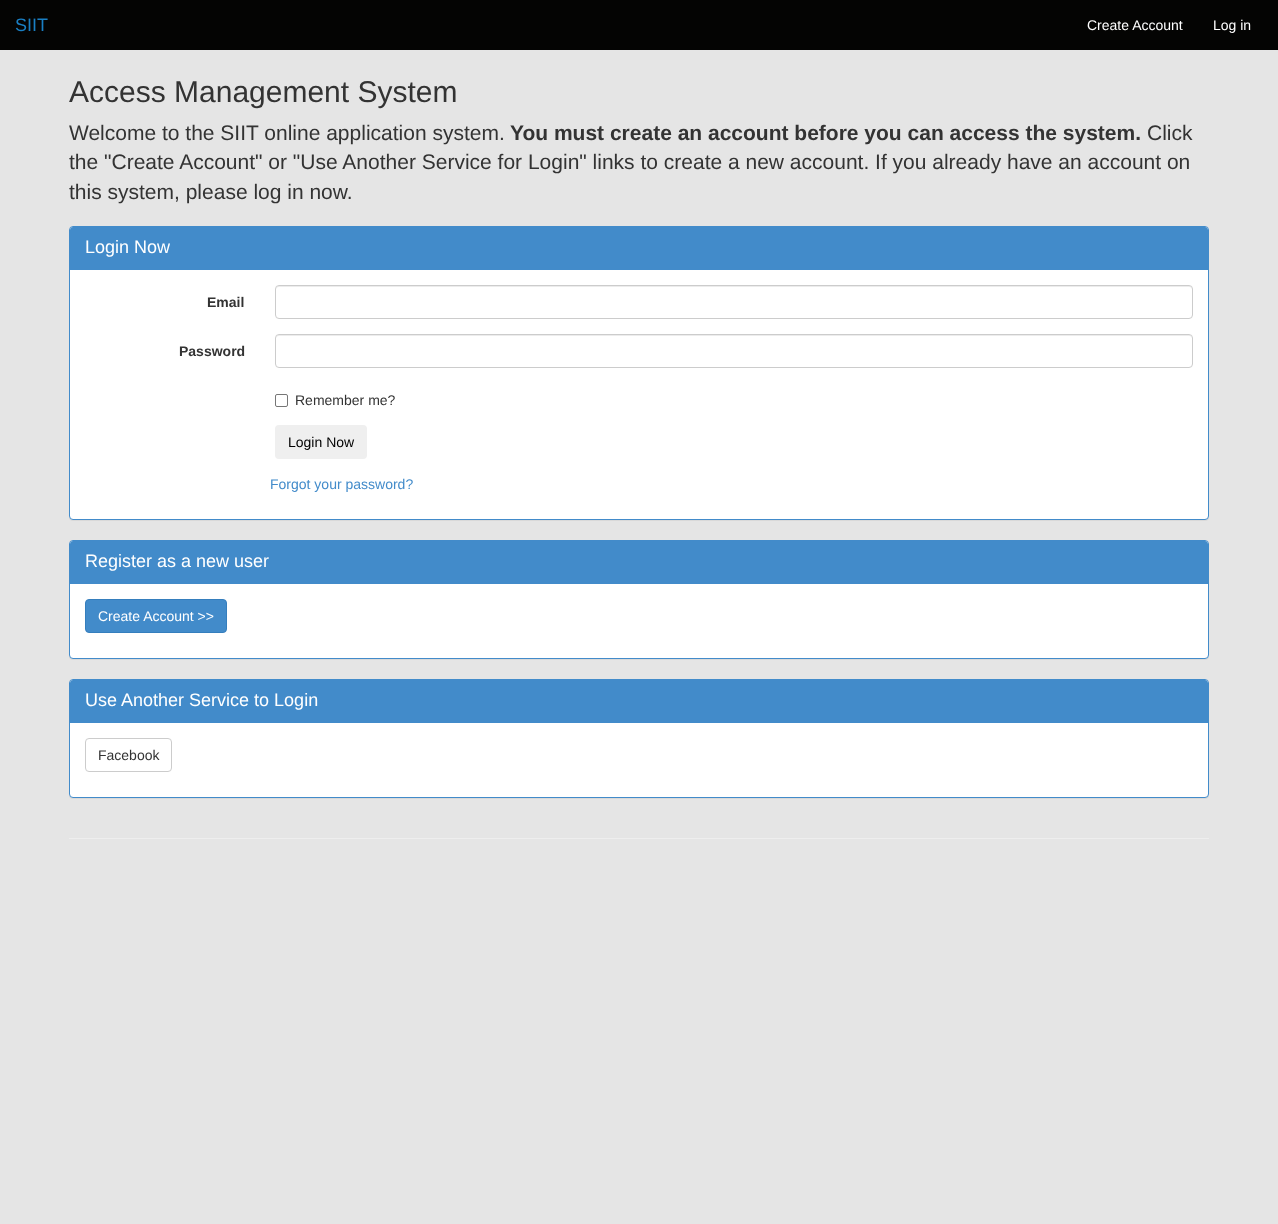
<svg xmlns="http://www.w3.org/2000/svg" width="1278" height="1224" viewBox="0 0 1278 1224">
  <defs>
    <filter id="blur1" x="-50%" y="-200%" width="200%" height="500%"><feGaussianBlur stdDeviation="0.5"/></filter>
  </defs>
  <rect width="100%" height="100%" fill="#e5e5e5"/>
  <rect x="0" y="0" width="1278" height="50" fill="#040403"/>
  <text x="15" y="31" font-family="Liberation Sans" font-size="18" fill="#1a7fc3">SIIT</text>
  <text x="1087" y="30" font-family="Liberation Sans" font-size="14" fill="#ffffff">Create Account</text>
  <text x="1213" y="30" font-family="Liberation Sans" font-size="14" fill="#ffffff">Log in</text>
  <text x="69" y="102" font-family="Liberation Sans" font-size="30" fill="#333333">Access Management System</text>
  <text x="69" y="140" font-family="Liberation Sans" font-size="21" fill="#333333">Welcome to the SIIT online application system.</text>
  <text x="510" y="140" font-family="Liberation Sans" font-size="21" font-weight="bold" fill="#333333">You must create an account before you can access the system.</text>
  <text x="1147" y="140" font-family="Liberation Sans" font-size="21" fill="#333333">Click</text>
  <text x="69" y="169" font-family="Liberation Sans" font-size="21" fill="#333333">the "Create Account" or "Use Another Service for Login" links to create a new account. If you already have an account on</text>
  <text x="69" y="199" font-family="Liberation Sans" font-size="21" fill="#333333">this system, please log in now.</text>
  <rect x="69" y="227" width="1140" height="294" rx="4" fill="#000000" fill-opacity="0.05" filter="url(#blur1)"/>
  <rect x="69.5" y="226.5" width="1139" height="293" rx="3.5" fill="#ffffff" stroke="#428bca"/>
  <path d="M73 227H1205C1206.5 227 1208 228.5 1208 230V270H70V230C70 228.5 71.5 227 73 227Z" fill="#428bca"/>
  <text x="85" y="253" font-family="Liberation Sans" font-size="18" fill="#ffffff">Login Now</text>
  <text x="207" y="307" font-family="Liberation Sans" font-size="14" font-weight="bold" fill="#333333">Email</text>
  <path d="M279 287H1189C1191 287 1192 288 1192 290C1192 288 1191 286 1189 286H279C277 286 276 288 276 290C276 288 277 287 279 287Z" fill="#ececec"/>
  <rect x="275.5" y="285.5" width="917" height="33" rx="3.5" fill="none" stroke="#cccccc"/>
  <text x="179" y="356" font-family="Liberation Sans" font-size="14" font-weight="bold" fill="#333333">Password</text>
  <path d="M279 336H1189C1191 336 1192 337 1192 339C1192 337 1191 335 1189 335H279C277 335 276 337 276 339C276 337 277 336 279 336Z" fill="#ececec"/>
  <rect x="275.5" y="334.5" width="917" height="33" rx="3.5" fill="none" stroke="#cccccc"/>
  <rect x="275.5" y="394.5" width="12" height="12" rx="1.5" fill="none" stroke="#767676"/>
  <text x="295" y="405" font-family="Liberation Sans" font-size="14" fill="#333333">Remember me?</text>
  <rect x="275" y="425" width="92" height="34" rx="4" fill="#efefef"/>
  <text x="288" y="447" font-family="Liberation Sans" font-size="14" fill="#000000">Login Now</text>
  <text x="270" y="489" font-family="Liberation Sans" font-size="14" fill="#428bca">Forgot your password?</text>
  <rect x="69" y="541" width="1140" height="119" rx="4" fill="#000000" fill-opacity="0.05" filter="url(#blur1)"/>
  <rect x="69.5" y="540.5" width="1139" height="118" rx="3.5" fill="#ffffff" stroke="#428bca"/>
  <path d="M73 541H1205C1206.5 541 1208 542.5 1208 544V584H70V544C70 542.5 71.5 541 73 541Z" fill="#428bca"/>
  <text x="85" y="567" font-family="Liberation Sans" font-size="18" fill="#ffffff">Register as a new user</text>
  <rect x="85.5" y="599.5" width="141" height="33" rx="3.5" fill="#428bca" stroke="#357ebd"/>
  <text x="98" y="621" font-family="Liberation Sans" font-size="14" fill="#ffffff">Create Account &gt;&gt;</text>
  <rect x="69" y="680" width="1140" height="119" rx="4" fill="#000000" fill-opacity="0.05" filter="url(#blur1)"/>
  <rect x="69.5" y="679.5" width="1139" height="118" rx="3.5" fill="#ffffff" stroke="#428bca"/>
  <path d="M73 680H1205C1206.5 680 1208 681.5 1208 683V723H70V683C70 681.5 71.5 680 73 680Z" fill="#428bca"/>
  <text x="85" y="706" font-family="Liberation Sans" font-size="18" fill="#ffffff">Use Another Service to Login</text>
  <rect x="85.5" y="738.5" width="86" height="33" rx="3.5" fill="none" stroke="#cccccc"/>
  <text x="98" y="760" font-family="Liberation Sans" font-size="14" fill="#333333">Facebook</text>
  <rect x="69" y="838" width="1140" height="1" fill="#eeeeee"/>
</svg>
